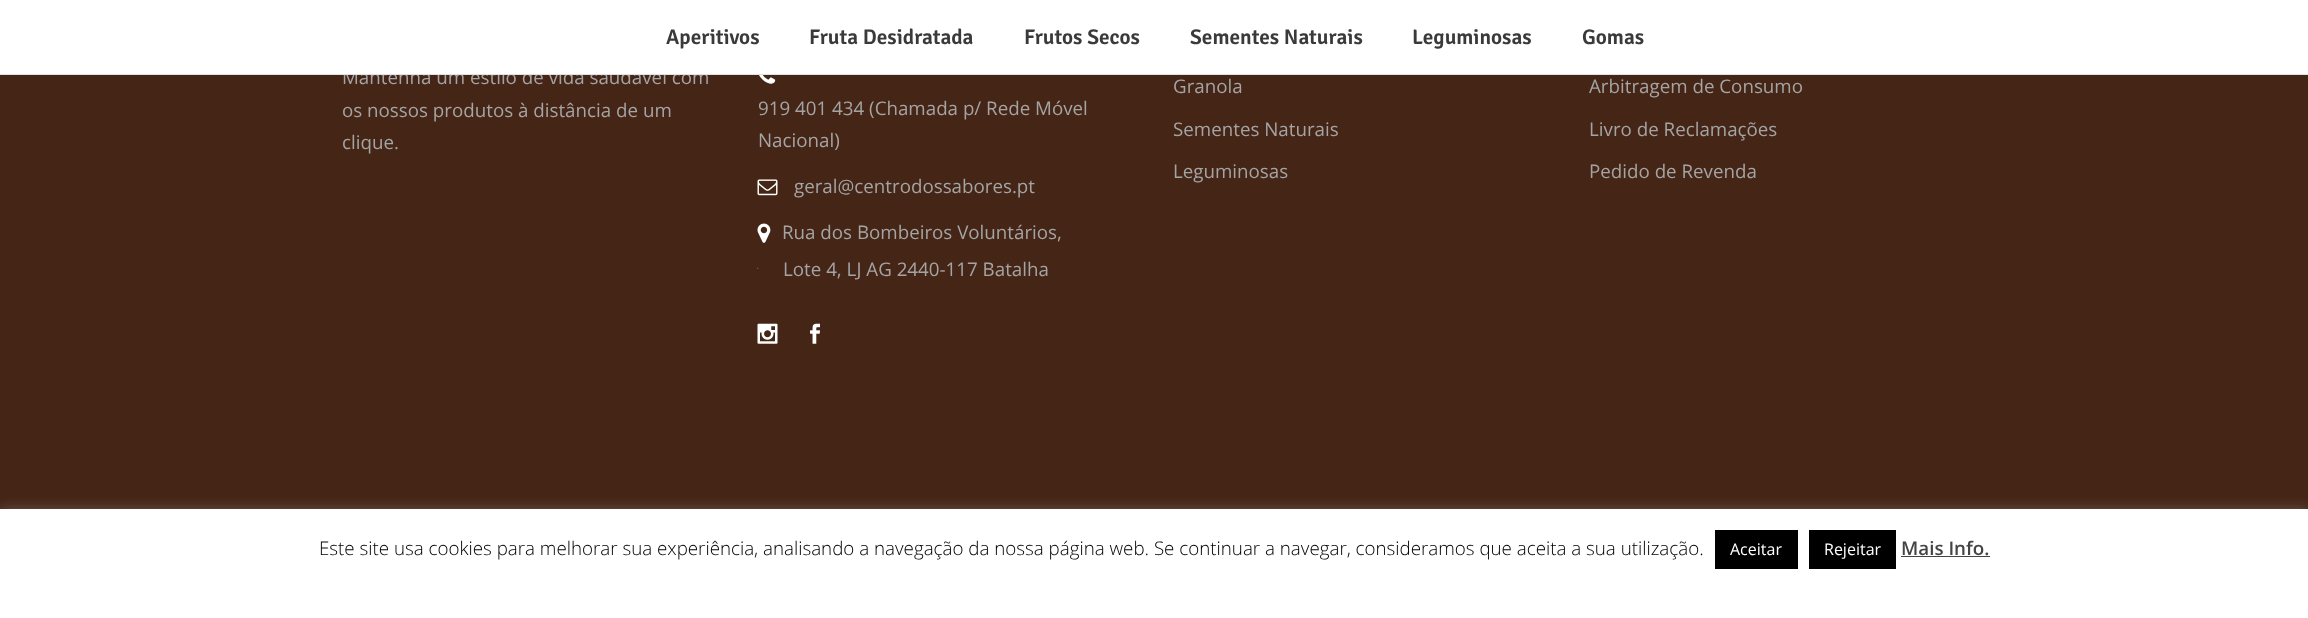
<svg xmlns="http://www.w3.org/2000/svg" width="2308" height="618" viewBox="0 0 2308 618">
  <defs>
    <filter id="blur1" x="-50%" y="-200%" width="200%" height="500%"><feGaussianBlur stdDeviation="6"/></filter>
  </defs>
  <rect width="100%" height="100%" fill="#452516"/>
  <text x="342" y="84" font-family="Open Sans" font-size="18.75" fill="#a4a4a4">Mantenha um estilo de vida saudável com</text>
  <rect x="0" y="0" width="2308" height="74" fill="#ffffff"/>
  <rect x="0" y="74" width="2308" height="1" fill="#e1e1e1"/>
  <text x="666" y="44" font-family="Signika" font-size="21.25" font-weight="600" fill="#3a3a3a">Aperitivos</text>
  <text x="809" y="44" font-family="Signika" font-size="21.25" font-weight="600" fill="#3a3a3a">Fruta Desidratada</text>
  <text x="1024" y="44" font-family="Signika" font-size="21.25" font-weight="600" fill="#3a3a3a">Frutos Secos</text>
  <text x="1190" y="44" font-family="Signika" font-size="21.25" font-weight="600" fill="#3a3a3a">Sementes Naturais</text>
  <text x="1412" y="44" font-family="Signika" font-size="21.25" font-weight="600" fill="#3a3a3a">Leguminosas</text>
  <text x="1582" y="44" font-family="Signika" font-size="21.25" font-weight="600" fill="#3a3a3a">Gomas</text>
  <text x="342" y="117" font-family="Open Sans" font-size="18.75" fill="#a4a4a4">os nossos produtos à distância de um</text>
  <text x="342" y="149" font-family="Open Sans" font-size="18.75" fill="#a4a4a4">clique.</text>
  <image x="759" y="75" width="17" height="9" href="img1.png"/>
  <text x="758" y="115" font-family="Open Sans" font-size="18.75" fill="#a4a4a4">919 401 434 (Chamada p/ Rede Móvel</text>
  <text x="758" y="147" font-family="Open Sans" font-size="18.75" fill="#a4a4a4">Nacional)</text>
  <image x="757" y="179" width="21" height="17" href="img2.png"/>
  <text x="794" y="193" font-family="Open Sans" font-size="18.75" fill="#a4a4a4">geral@centrodossabores.pt</text>
  <image x="757" y="223" width="14" height="20" href="img3.png"/>
  <text x="782" y="239" font-family="Open Sans" font-size="18.75" fill="#a4a4a4">Rua dos Bombeiros Voluntários,</text>
  <image x="757" y="267" width="2" height="2" href="img4.png"/>
  <text x="783" y="276" font-family="Open Sans" font-size="18.75" fill="#a4a4a4">Lote 4, LJ AG 2440-117 Batalha</text>
  <image x="757" y="323" width="21" height="21" href="img5.png"/>
  <image x="810" y="323" width="10" height="21" href="img6.png"/>
  <text x="1173" y="93" font-family="Open Sans" font-size="18.75" fill="#a4a4a4">Granola</text>
  <text x="1173" y="136" font-family="Open Sans" font-size="18.75" fill="#a4a4a4">Sementes Naturais</text>
  <text x="1173" y="178" font-family="Open Sans" font-size="18.75" fill="#a4a4a4">Leguminosas</text>
  <text x="1589" y="93" font-family="Open Sans" font-size="18.75" fill="#a4a4a4">Arbitragem de Consumo</text>
  <text x="1589" y="136" font-family="Open Sans" font-size="18.75" fill="#a4a4a4">Livro de Reclamações</text>
  <text x="1589" y="178" font-family="Open Sans" font-size="18.75" fill="#a4a4a4">Pedido de Revenda</text>
  <rect x="0" y="508" width="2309" height="110" fill="#acabab" fill-opacity="0.3" filter="url(#blur1)"/>
  <rect x="0" y="509" width="2308" height="109" fill="#ffffff"/>
  <text x="319" y="555" font-family="Open Sans" font-size="18.75" font-weight="300" fill="#000000">Este site usa cookies para melhorar sua experiência, analisando a navegação da nossa página web. Se continuar a navegar, consideramos que aceita a sua utilização.</text>
  <rect x="1715" y="530" width="83" height="39" fill="#000000"/>
  <text x="1730" y="555" font-family="Open Sans" font-size="16" fill="#ffffff">Aceitar</text>
  <rect x="1809" y="530" width="87" height="39" fill="#000000"/>
  <text x="1824" y="555" font-family="Open Sans" font-size="16" fill="#ffffff">Rejeitar</text>
  <text x="1901" y="555" font-family="Open Sans" font-size="18.75" font-weight="600" fill="#444444">Mais Info.</text>
  <rect x="1901" y="556" width="89" height="1" fill="#444444"/>
</svg>
